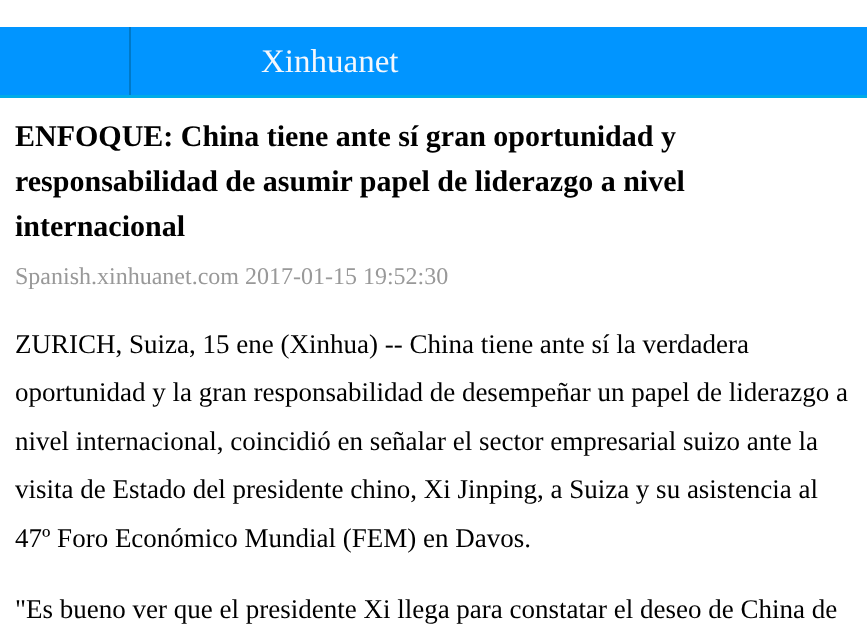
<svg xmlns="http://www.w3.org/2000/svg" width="867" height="631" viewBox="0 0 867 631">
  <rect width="100%" height="100%" fill="#ffffff"/>
  <rect x="0" y="27" width="867" height="68" fill="#0195ff"/>
  <rect x="0" y="95" width="867" height="3" fill="#00abe7"/>
  <rect x="129" y="27" width="2" height="68" fill="#0079c8"/>
  <text x="261" y="72" font-family="Liberation Serif" font-size="33" fill="#f4f7fc">Xinhuanet</text>
  <text x="15" y="146" font-family="Liberation Serif" font-size="30" font-weight="bold" fill="#000000">ENFOQUE: China tiene ante sí gran oportunidad y</text>
  <text x="15" y="191" font-family="Liberation Serif" font-size="30" font-weight="bold" fill="#000000">responsabilidad de asumir papel de liderazgo a nivel</text>
  <text x="15" y="236" font-family="Liberation Serif" font-size="30" font-weight="bold" fill="#000000">internacional</text>
  <text x="15" y="284" font-family="Liberation Serif" font-size="24" fill="#999999">Spanish.xinhuanet.com 2017-01-15 19:52:30</text>
  <text x="15" y="353" font-family="Liberation Serif" font-size="27" fill="#000000">ZURICH, Suiza, 15 ene (Xinhua) -- China tiene ante sí la verdadera</text>
  <text x="15" y="401" font-family="Liberation Serif" font-size="27" fill="#000000">oportunidad y la gran responsabilidad de desempeñar un papel de liderazgo a</text>
  <text x="15" y="450" font-family="Liberation Serif" font-size="27" fill="#000000">nivel internacional, coincidió en señalar el sector empresarial suizo ante la</text>
  <text x="15" y="498" font-family="Liberation Serif" font-size="27" fill="#000000">visita de Estado del presidente chino, Xi Jinping, a Suiza y su asistencia al</text>
  <text x="15" y="547" font-family="Liberation Serif" font-size="27" fill="#000000">47º Foro Económico Mundial (FEM) en Davos.</text>
  <text x="15" y="618" font-family="Liberation Serif" font-size="27" fill="#000000">"Es bueno ver que el presidente Xi llega para constatar el deseo de China de</text>
</svg>
